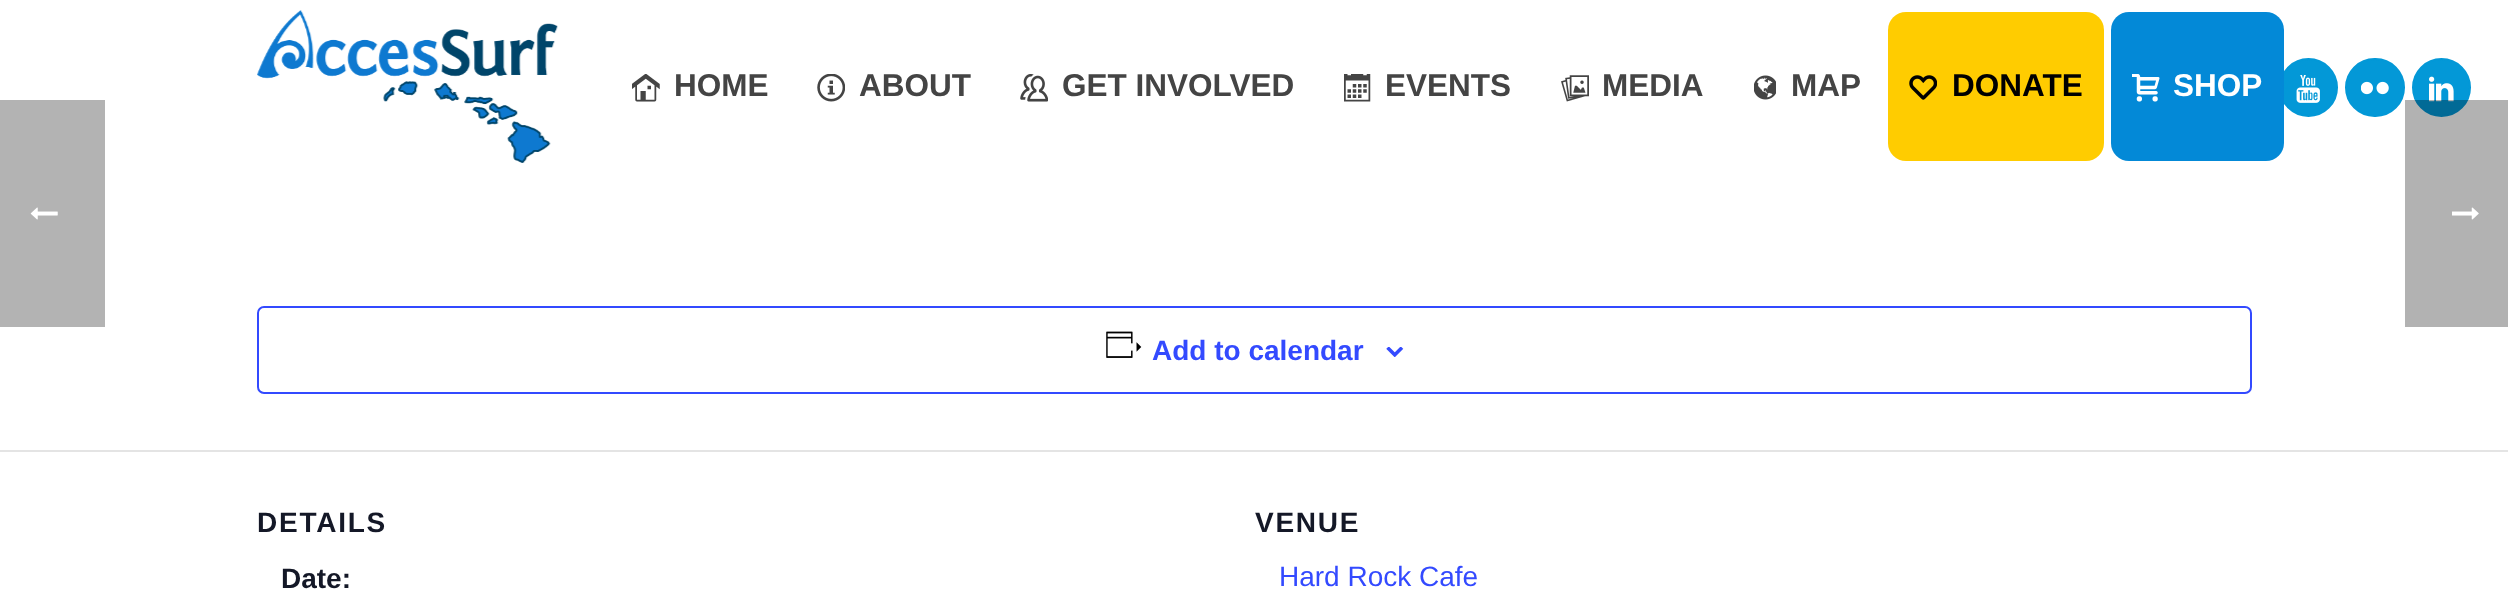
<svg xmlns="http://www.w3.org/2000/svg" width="2508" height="601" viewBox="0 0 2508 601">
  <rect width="100%" height="100%" fill="#ffffff"/>
  <rect x="0" y="100" width="105" height="227" fill="#b3b3b3"/>
  <image x="30" y="207" width="28" height="13" href="img1.png"/>
  <image x="257" y="10" width="301" height="153" href="img2.png"/>
  <image x="632" y="74" width="28" height="28" href="img3.png"/>
  <text x="674" y="96" font-family="Liberation Sans" font-size="31.5" font-weight="bold" fill="#444444">HOME</text>
  <image x="817" y="74" width="28" height="28" href="img4.png"/>
  <text x="859" y="96" font-family="Liberation Sans" font-size="31.5" font-weight="bold" fill="#444444">ABOUT</text>
  <image x="1020" y="74" width="28" height="28" href="img5.png"/>
  <text x="1062" y="96" font-family="Liberation Sans" font-size="31.5" font-weight="bold" fill="#444444">GET INVOLVED</text>
  <image x="1344" y="74" width="27" height="28" href="img6.png"/>
  <text x="1385" y="96" font-family="Liberation Sans" font-size="31.5" font-weight="bold" fill="#444444">EVENTS</text>
  <image x="1561" y="75" width="28" height="27" href="img7.png"/>
  <text x="1602" y="96" font-family="Liberation Sans" font-size="31.5" font-weight="bold" fill="#444444">MEDIA</text>
  <image x="1754" y="75" width="22" height="25" href="img8.png"/>
  <text x="1791" y="96" font-family="Liberation Sans" font-size="31.5" font-weight="bold" fill="#444444">MAP</text>
  <rect x="1888" y="12" width="216" height="149" rx="18" fill="#ffcc00"/>
  <image x="1909" y="75" width="28" height="25" href="img9.png"/>
  <text x="1952" y="96" font-family="Liberation Sans" font-size="31.5" font-weight="bold" fill="#000000">DONATE</text>
  <circle cx="2308.5" cy="87.5" r="28.5" fill="#0398d7" stroke="#0398d7" stroke-width="2"/>
  <rect x="2111" y="12" width="173" height="149" rx="18" fill="#0389d7"/>
  <image x="2132" y="74" width="28" height="28" href="img10.png"/>
  <text x="2173" y="96" font-family="Liberation Sans" font-size="31.5" font-weight="bold" fill="#ffffff">SHOP</text>
  <image x="2296" y="75" width="24" height="28" href="img11.png"/>
  <rect x="2346" y="59" width="58" height="57" rx="28.5" fill="#0398d7" stroke="#0398d7" stroke-width="2"/>
  <image x="2361" y="81" width="28" height="14" href="img12.png"/>
  <circle cx="2441.5" cy="87.5" r="28.5" fill="#0398d7" stroke="#0398d7" stroke-width="2"/>
  <image x="2429" y="76" width="25" height="26" href="img13.png"/>
  <rect x="258" y="307" width="1993" height="86" rx="6" fill="none" stroke="#334aff" stroke-width="2"/>
  <image x="1106" y="331" width="36" height="27" href="img14.png"/>
  <text x="1152" y="360" font-family="Liberation Sans" font-size="28" font-weight="bold" fill="#334aff">Add to calendar</text>
  <image x="1386" y="347" width="18" height="10" href="img15.png"/>
  <rect x="0" y="450" width="2508" height="2" fill="#e4e4e4"/>
  <text x="257" y="532" font-family="Liberation Sans" font-size="28" font-weight="bold" letter-spacing="1.75" fill="#141827">DETAILS</text>
  <text x="281" y="588" font-family="Liberation Sans" font-size="28" font-weight="bold" fill="#141827">Date:</text>
  <text x="1255" y="532" font-family="Liberation Sans" font-size="28" font-weight="bold" letter-spacing="1.75" fill="#141827">VENUE</text>
  <text x="1279" y="586" font-family="Liberation Sans" font-size="28" fill="#334aff">Hard Rock Cafe</text>
  <rect x="2405" y="100" width="103" height="227" fill="#000000" fill-opacity="0.3"/>
  <image x="2452" y="207" width="27" height="13" href="img16.png"/>
</svg>
